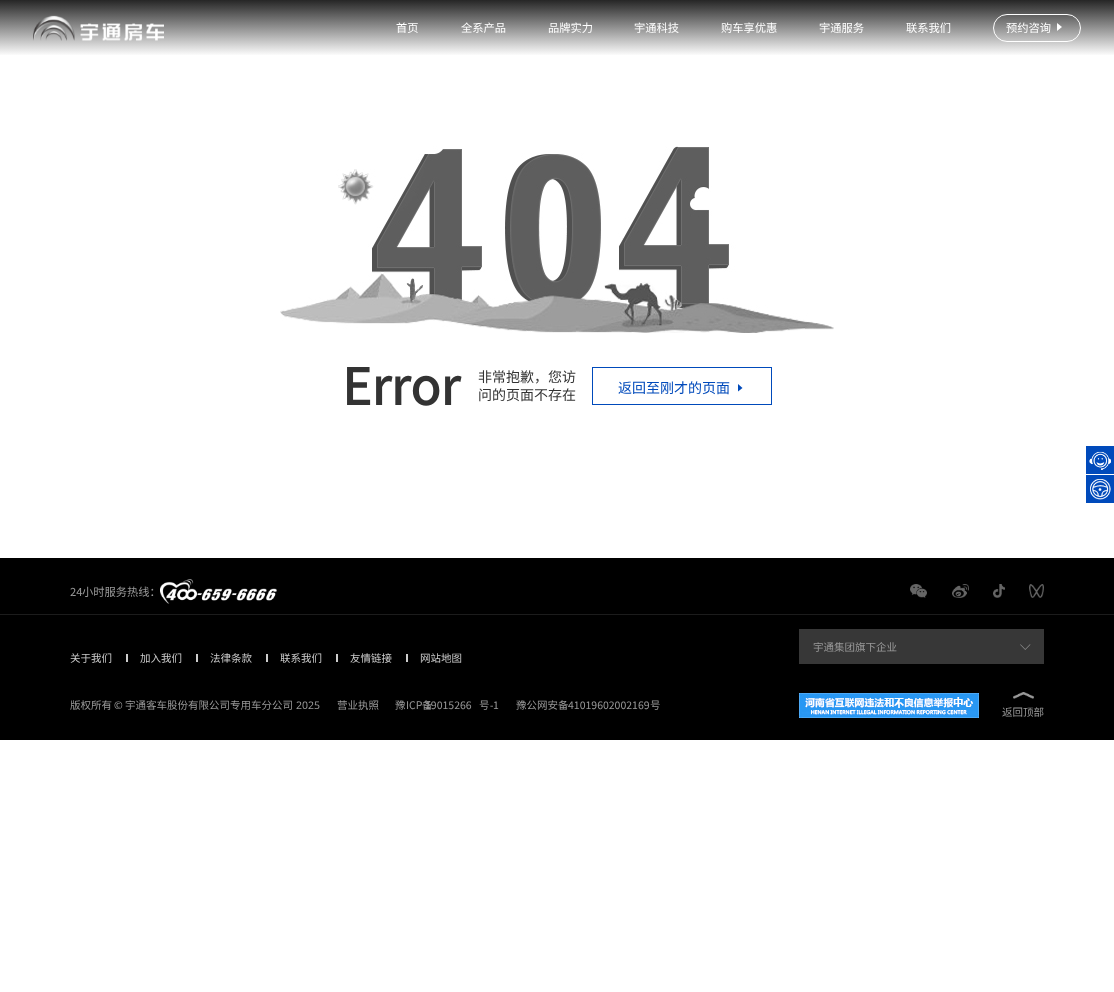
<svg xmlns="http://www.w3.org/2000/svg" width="1114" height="992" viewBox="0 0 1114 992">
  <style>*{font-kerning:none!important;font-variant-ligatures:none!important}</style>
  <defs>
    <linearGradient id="g1" gradientUnits="userSpaceOnUse" x1="557" y1="0" x2="557" y2="56"><stop offset="0" stop-color="#262626"/><stop offset="1" stop-color="#ffffff"/></linearGradient>
  </defs>
  <rect width="100%" height="100%" fill="#ffffff"/>
  <rect x="0" y="0" width="1114" height="55" fill="url(#g1)"/>
  <image x="33" y="15" width="131" height="26" href="img1.png"/>
  <text x="396" y="32" font-family="Noto Sans CJK SC" font-size="11.25" fill="#ffffff">首页</text>
  <text x="461" y="32" font-family="Noto Sans CJK SC" font-size="11.25" fill="#ffffff">全系产品</text>
  <text x="548" y="32" font-family="Noto Sans CJK SC" font-size="11.25" fill="#ffffff">品牌实力</text>
  <text x="634" y="32" font-family="Noto Sans CJK SC" font-size="11.25" fill="#ffffff">宇通科技</text>
  <text x="721" y="32" font-family="Noto Sans CJK SC" font-size="11.25" fill="#ffffff">购车享优惠</text>
  <text x="819" y="32" font-family="Noto Sans CJK SC" font-size="11.25" fill="#ffffff">宇通服务</text>
  <text x="906" y="32" font-family="Noto Sans CJK SC" font-size="11.25" fill="#ffffff">联系我们</text>
  <rect x="993.5" y="14.5" width="87" height="27" rx="13.5" fill="none" stroke="#ffffff"/>
  <text x="1006" y="32" font-family="Noto Sans CJK SC" font-size="11.25" fill="#ffffff">预约咨询</text>
  <path d="M1057 23V31L1062 27Z" fill="#ffffff"/>
  <image x="280" y="146" width="554" height="187" href="img2.png"/>
  <text x="342" y="405" font-family="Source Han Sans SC" font-size="50" font-weight="bold" fill="#333333">Error</text>
  <text x="478" y="382" font-family="Noto Sans CJK SC" font-size="14" fill="#333333">非常抱歉</text>
  <text x="534" y="382" font-family="Source Han Sans SC" font-size="14" fill="#333333">，</text>
  <text x="548" y="382" font-family="Noto Sans CJK SC" font-size="14" fill="#333333">您访</text>
  <text x="478" y="400" font-family="Noto Sans CJK SC" font-size="14" fill="#333333">问的页面不存在</text>
  <rect x="592.5" y="367.5" width="179" height="37" fill="none" stroke="#004abb"/>
  <text x="618" y="393" font-family="Noto Sans CJK SC" font-size="14" fill="#004abb">返回至刚才的页面</text>
  <path d="M738 384V391.5L742.5 388Z" fill="#004abb"/>
  <rect x="1086" y="446" width="28" height="28" fill="#004abb"/>
  <image x="1089" y="451" width="22" height="19" href="img3.png"/>
  <rect x="1086" y="475" width="28" height="28" fill="#004abb"/>
  <image x="1090" y="479" width="21" height="21" href="img4.png"/>
  <rect x="0" y="558" width="1114" height="182" fill="#000000"/>
  <rect x="0" y="614" width="1114" height="1" fill="#1c1c1c"/>
  <text x="70" y="596" font-family="Source Han Sans SC" font-size="11.25" fill="#999999">24</text>
  <text x="82" y="596" font-family="Noto Sans CJK SC" font-size="11.25" fill="#999999">小时服务热线：</text>
  <image x="160" y="579" width="117" height="25" href="img5.png"/>
  <image x="910" y="584" width="17" height="14" href="img6.png"/>
  <image x="952" y="584" width="17" height="14" href="img7.png"/>
  <image x="993" y="584" width="12" height="14" href="img8.png"/>
  <image x="1029" y="584" width="15" height="14" href="img9.png"/>
  <rect x="799" y="629" width="245" height="35" fill="#373737"/>
  <text x="813" y="651" font-family="Noto Sans CJK SC" font-size="10.5" fill="#999999">宇通集团旗下企业</text>
  <image x="1020" y="644" width="11" height="6" href="img10.png"/>
  <text x="70" y="662" font-family="Noto Sans CJK SC" font-size="10.5" fill="#cccccc">关于我们</text>
  <rect x="126" y="654" width="2" height="8" fill="#cccccc"/>
  <text x="140" y="662" font-family="Noto Sans CJK SC" font-size="10.5" fill="#cccccc">加入我们</text>
  <rect x="196" y="654" width="2" height="8" fill="#cccccc"/>
  <text x="210" y="662" font-family="Noto Sans CJK SC" font-size="10.5" fill="#cccccc">法律条款</text>
  <rect x="266" y="654" width="2" height="8" fill="#cccccc"/>
  <text x="280" y="662" font-family="Noto Sans CJK SC" font-size="10.5" fill="#cccccc">联系我们</text>
  <rect x="336" y="654" width="2" height="8" fill="#cccccc"/>
  <text x="350" y="662" font-family="Noto Sans CJK SC" font-size="10.5" fill="#cccccc">友情链接</text>
  <rect x="406" y="654" width="2" height="8" fill="#cccccc"/>
  <text x="420" y="662" font-family="Noto Sans CJK SC" font-size="10.5" fill="#cccccc">网站地图</text>
  <text x="70" y="709" font-family="Noto Sans CJK SC" font-size="10.5" fill="#999999">版权所有</text>
  <text x="114" y="709" font-family="Noto Sans" font-size="10.5" fill="#999999">©</text>
  <text x="125" y="709" font-family="Noto Sans CJK SC" font-size="10.5" fill="#999999">宇通客车股份有限公司专用车分公司</text>
  <text x="296" y="709" font-family="Noto Sans" font-size="10.5" fill="#999999">2025</text>
  <text x="337" y="709" font-family="Noto Sans CJK SC" font-size="10.5" fill="#999999">营业执照</text>
  <text x="395" y="709" font-family="Noto Sans CJK SC" font-size="10.5" fill="#999999">豫</text>
  <text x="406" y="709" font-family="Source Han Sans SC" font-size="10.5" fill="#999999">ICP 19015266</text>
  <text x="422" y="709" font-family="Noto Sans CJK SC" font-size="10.5" fill="#999999">备</text>
  <text x="479" y="709" font-family="Noto Sans CJK SC" font-size="10.5" fill="#999999">号</text>
  <text x="490" y="709" font-family="Noto Sans" font-size="10.5" fill="#999999">-</text>
  <text x="493" y="709" font-family="Source Han Sans SC" font-size="10.5" fill="#999999">1</text>
  <text x="516" y="709" font-family="Noto Sans CJK SC" font-size="10.5" fill="#999999">豫公网安备</text>
  <text x="568" y="709" font-family="Source Han Sans SC" font-size="10.5" fill="#999999">41019602002169</text>
  <text x="650" y="709" font-family="Noto Sans CJK SC" font-size="10.5" fill="#999999">号</text>
  <image x="799" y="693" width="180" height="25" href="img11.png"/>
  <image x="1013" y="692" width="21" height="7" href="img12.png"/>
  <text x="1002" y="716" font-family="Noto Sans CJK SC" font-size="10.5" fill="#999999">返回顶部</text>
</svg>
